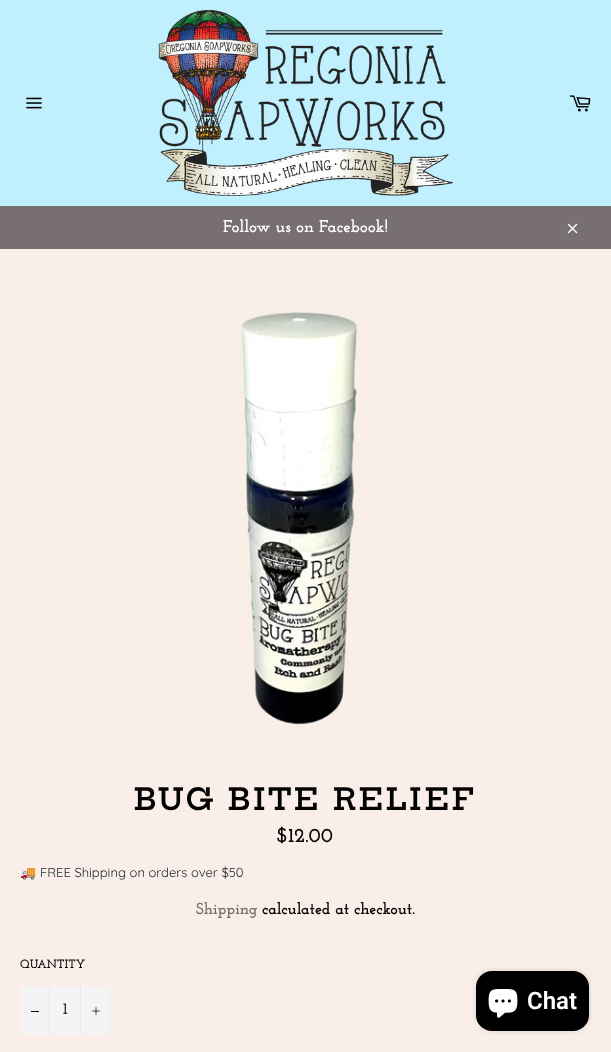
<svg xmlns="http://www.w3.org/2000/svg" width="611" height="1052" viewBox="0 0 611 1052">
  <defs>
    <filter id="blur1" x="-50%" y="-200%" width="200%" height="500%"><feGaussianBlur stdDeviation="2.5"/></filter>
  </defs>
  <rect width="100%" height="100%" fill="#f9efe8"/>
  <rect x="0" y="0" width="611" height="206" fill="#c0f0fd"/>
  <image x="26" y="97" width="16" height="12" href="img1.png"/>
  <image x="158" y="10" width="295" height="186" href="img2.png"/>
  <image x="569" y="95" width="22" height="17" href="img3.png"/>
  <rect x="0" y="206" width="611" height="43" fill="#787070"/>
  <text x="223" y="232" font-family="Josefin Slab" font-size="17" font-weight="bold" fill="#ffffff">Follow us on Facebook!</text>
  <image x="567" y="223" width="11" height="11" href="img4.png"/>
  <image x="240" y="310" width="119" height="417" href="img5.png"/>
  <text x="134" y="810" font-family="Hepta Slab" font-size="30" font-weight="600" letter-spacing="3" fill="#030303">BUG BITE RELIEF</text>
  <text x="277" y="842" font-family="Josefin Slab" font-size="20" font-weight="bold" fill="#030303">$12.00</text>
  <text x="20" y="877" font-family="Noto Color Emoji" font-size="13" fill="#212b35">🚚</text>
  <text x="40" y="877" font-family="Quicksand" font-size="13" font-weight="300" fill="#212b35">FREE Shipping on orders over $50</text>
  <text x="196" y="914" font-family="Josefin Slab" font-size="16" font-weight="bold" fill="#787070">Shipping</text>
  <text x="262" y="914" font-family="Josefin Slab" font-size="16" font-weight="bold" fill="#030303">calculated at checkout.</text>
  <text x="20" y="968" font-family="Josefin Slab" font-size="12" font-weight="bold" fill="#030303">QUANTITY</text>
  <rect x="20" y="986" width="90" height="48" fill="#f4f4f4"/>
  <rect x="49" y="986" width="1" height="48" fill="#e7e7e7"/>
  <rect x="31" y="1011" width="8" height="1" fill="#030303"/>
  <text x="63" y="1014" font-family="Josefin Slab" font-size="16" font-weight="bold" fill="#333333">1</text>
  <rect x="80" y="986" width="1" height="48" fill="#e7e7e7"/>
  <image x="92" y="1007" width="8" height="8" href="img6.png"/>
  <rect x="476" y="971" width="113" height="60" rx="16" fill="#000000" fill-opacity="0.15" filter="url(#blur1)"/>
  <rect x="476" y="971" width="113" height="60" rx="16" fill="#000000"/>
  <image x="488" y="989" width="30" height="29" href="img7.png"/>
  <text x="527" y="1009" font-family="Roboto" font-size="24" font-weight="600" fill="#ffffff">Chat</text>
</svg>
